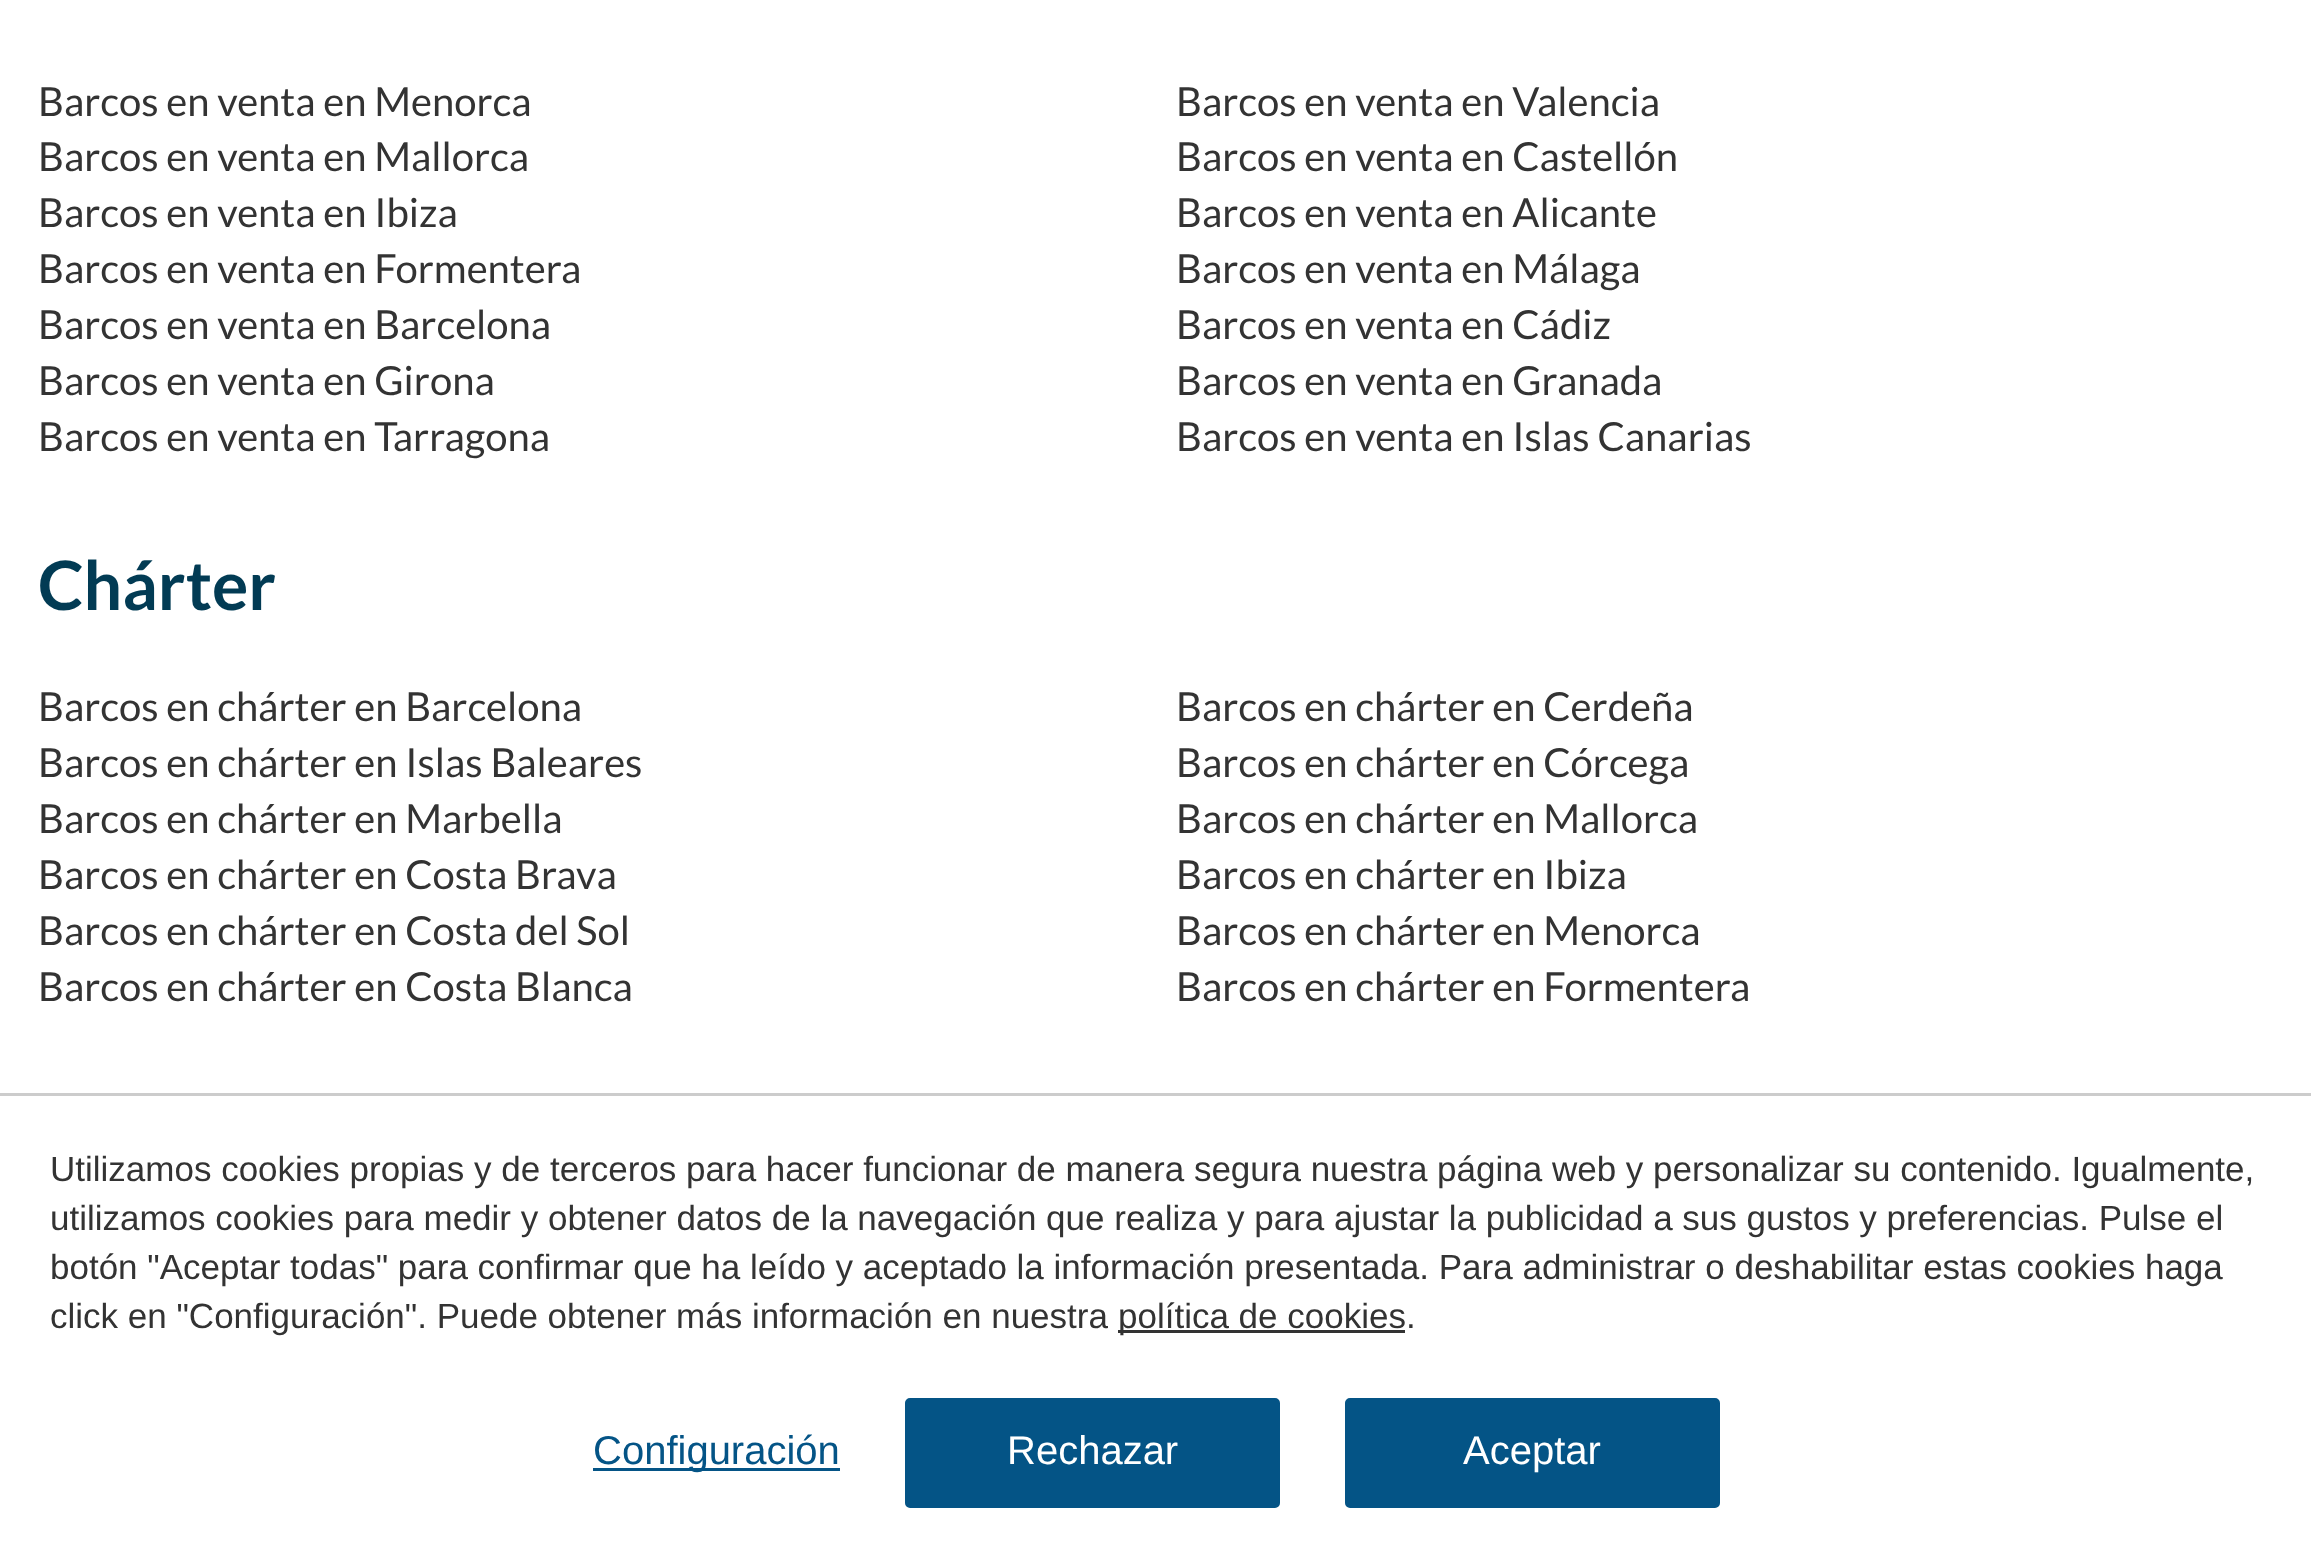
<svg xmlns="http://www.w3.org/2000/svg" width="2311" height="1566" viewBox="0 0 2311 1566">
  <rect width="100%" height="100%" fill="#ffffff"/>
  <text x="38" y="116" font-family="Lato" font-size="40" fill="#333333">Barcos en venta en Menorca</text>
  <text x="1176" y="116" font-family="Lato" font-size="40" fill="#333333">Barcos en venta en Valencia</text>
  <text x="38" y="171" font-family="Lato" font-size="40" fill="#333333">Barcos en venta en Mallorca</text>
  <text x="1176" y="171" font-family="Lato" font-size="40" fill="#333333">Barcos en venta en Castellón</text>
  <text x="38" y="227" font-family="Lato" font-size="40" fill="#333333">Barcos en venta en Ibiza</text>
  <text x="1176" y="227" font-family="Lato" font-size="40" fill="#333333">Barcos en venta en Alicante</text>
  <text x="38" y="283" font-family="Lato" font-size="40" fill="#333333">Barcos en venta en Formentera</text>
  <text x="1176" y="283" font-family="Lato" font-size="40" fill="#333333">Barcos en venta en Málaga</text>
  <text x="38" y="339" font-family="Lato" font-size="40" fill="#333333">Barcos en venta en Barcelona</text>
  <text x="1176" y="339" font-family="Lato" font-size="40" fill="#333333">Barcos en venta en Cádiz</text>
  <text x="38" y="395" font-family="Lato" font-size="40" fill="#333333">Barcos en venta en Girona</text>
  <text x="1176" y="395" font-family="Lato" font-size="40" fill="#333333">Barcos en venta en Granada</text>
  <text x="38" y="451" font-family="Lato" font-size="40" fill="#333333">Barcos en venta en Tarragona</text>
  <text x="1176" y="451" font-family="Lato" font-size="40" fill="#333333">Barcos en venta en Islas Canarias</text>
  <text x="38" y="610" font-family="Lato" font-size="68" font-weight="bold" fill="#023b54">Chárter</text>
  <text x="38" y="721" font-family="Lato" font-size="40" fill="#333333">Barcos en chárter en Barcelona</text>
  <text x="1176" y="721" font-family="Lato" font-size="40" fill="#333333">Barcos en chárter en Cerdeña</text>
  <text x="38" y="777" font-family="Lato" font-size="40" fill="#333333">Barcos en chárter en Islas Baleares</text>
  <text x="1176" y="777" font-family="Lato" font-size="40" fill="#333333">Barcos en chárter en Córcega</text>
  <text x="38" y="833" font-family="Lato" font-size="40" fill="#333333">Barcos en chárter en Marbella</text>
  <text x="1176" y="833" font-family="Lato" font-size="40" fill="#333333">Barcos en chárter en Mallorca</text>
  <text x="38" y="889" font-family="Lato" font-size="40" fill="#333333">Barcos en chárter en Costa Brava</text>
  <text x="1176" y="889" font-family="Lato" font-size="40" fill="#333333">Barcos en chárter en Ibiza</text>
  <text x="38" y="945" font-family="Lato" font-size="40" fill="#333333">Barcos en chárter en Costa del Sol</text>
  <text x="1176" y="945" font-family="Lato" font-size="40" fill="#333333">Barcos en chárter en Menorca</text>
  <text x="38" y="1001" font-family="Lato" font-size="40" fill="#333333">Barcos en chárter en Costa Blanca</text>
  <text x="1176" y="1001" font-family="Lato" font-size="40" fill="#333333">Barcos en chárter en Formentera</text>
  <rect x="0" y="1093" width="2311" height="3" fill="#cccccc"/>
  <text x="50" y="1181" font-family="Liberation Sans" font-size="35" fill="#333333">Utilizamos cookies propias y de terceros para hacer funcionar de manera segura nuestra página web y personalizar su contenido. Igualmente,</text>
  <text x="50" y="1230" font-family="Liberation Sans" font-size="35" fill="#333333">utilizamos cookies para medir y obtener datos de la navegación que realiza y para ajustar la publicidad a sus gustos y preferencias. Pulse el</text>
  <text x="50" y="1279" font-family="Liberation Sans" font-size="35" fill="#333333">botón "Aceptar todas" para confirmar que ha leído y aceptado la información presentada. Para administrar o deshabilitar estas cookies haga</text>
  <text x="50" y="1328" font-family="Liberation Sans" font-size="35" fill="#333333">click en "Configuración". Puede obtener más información en nuestra</text>
  <rect x="1118" y="1330" width="287" height="3" fill="#333333"/>
  <text x="1118" y="1328" font-family="Liberation Sans" font-size="35" fill="#333333">política de cookies.</text>
  <rect x="593" y="1468" width="247" height="3" fill="#045486"/>
  <text x="593" y="1464" font-family="Liberation Sans" font-size="40" fill="#045486">Configuración</text>
  <rect x="906.5" y="1399.5" width="372" height="107" rx="3.5" fill="#045486" stroke="#045486" stroke-width="3"/>
  <text x="1007" y="1464" font-family="Liberation Sans" font-size="40" fill="#ffffff">Rechazar</text>
  <rect x="1346.5" y="1399.5" width="372" height="107" rx="3.5" fill="#045486" stroke="#045486" stroke-width="3"/>
  <text x="1463" y="1464" font-family="Liberation Sans" font-size="40" fill="#ffffff">Aceptar</text>
</svg>
